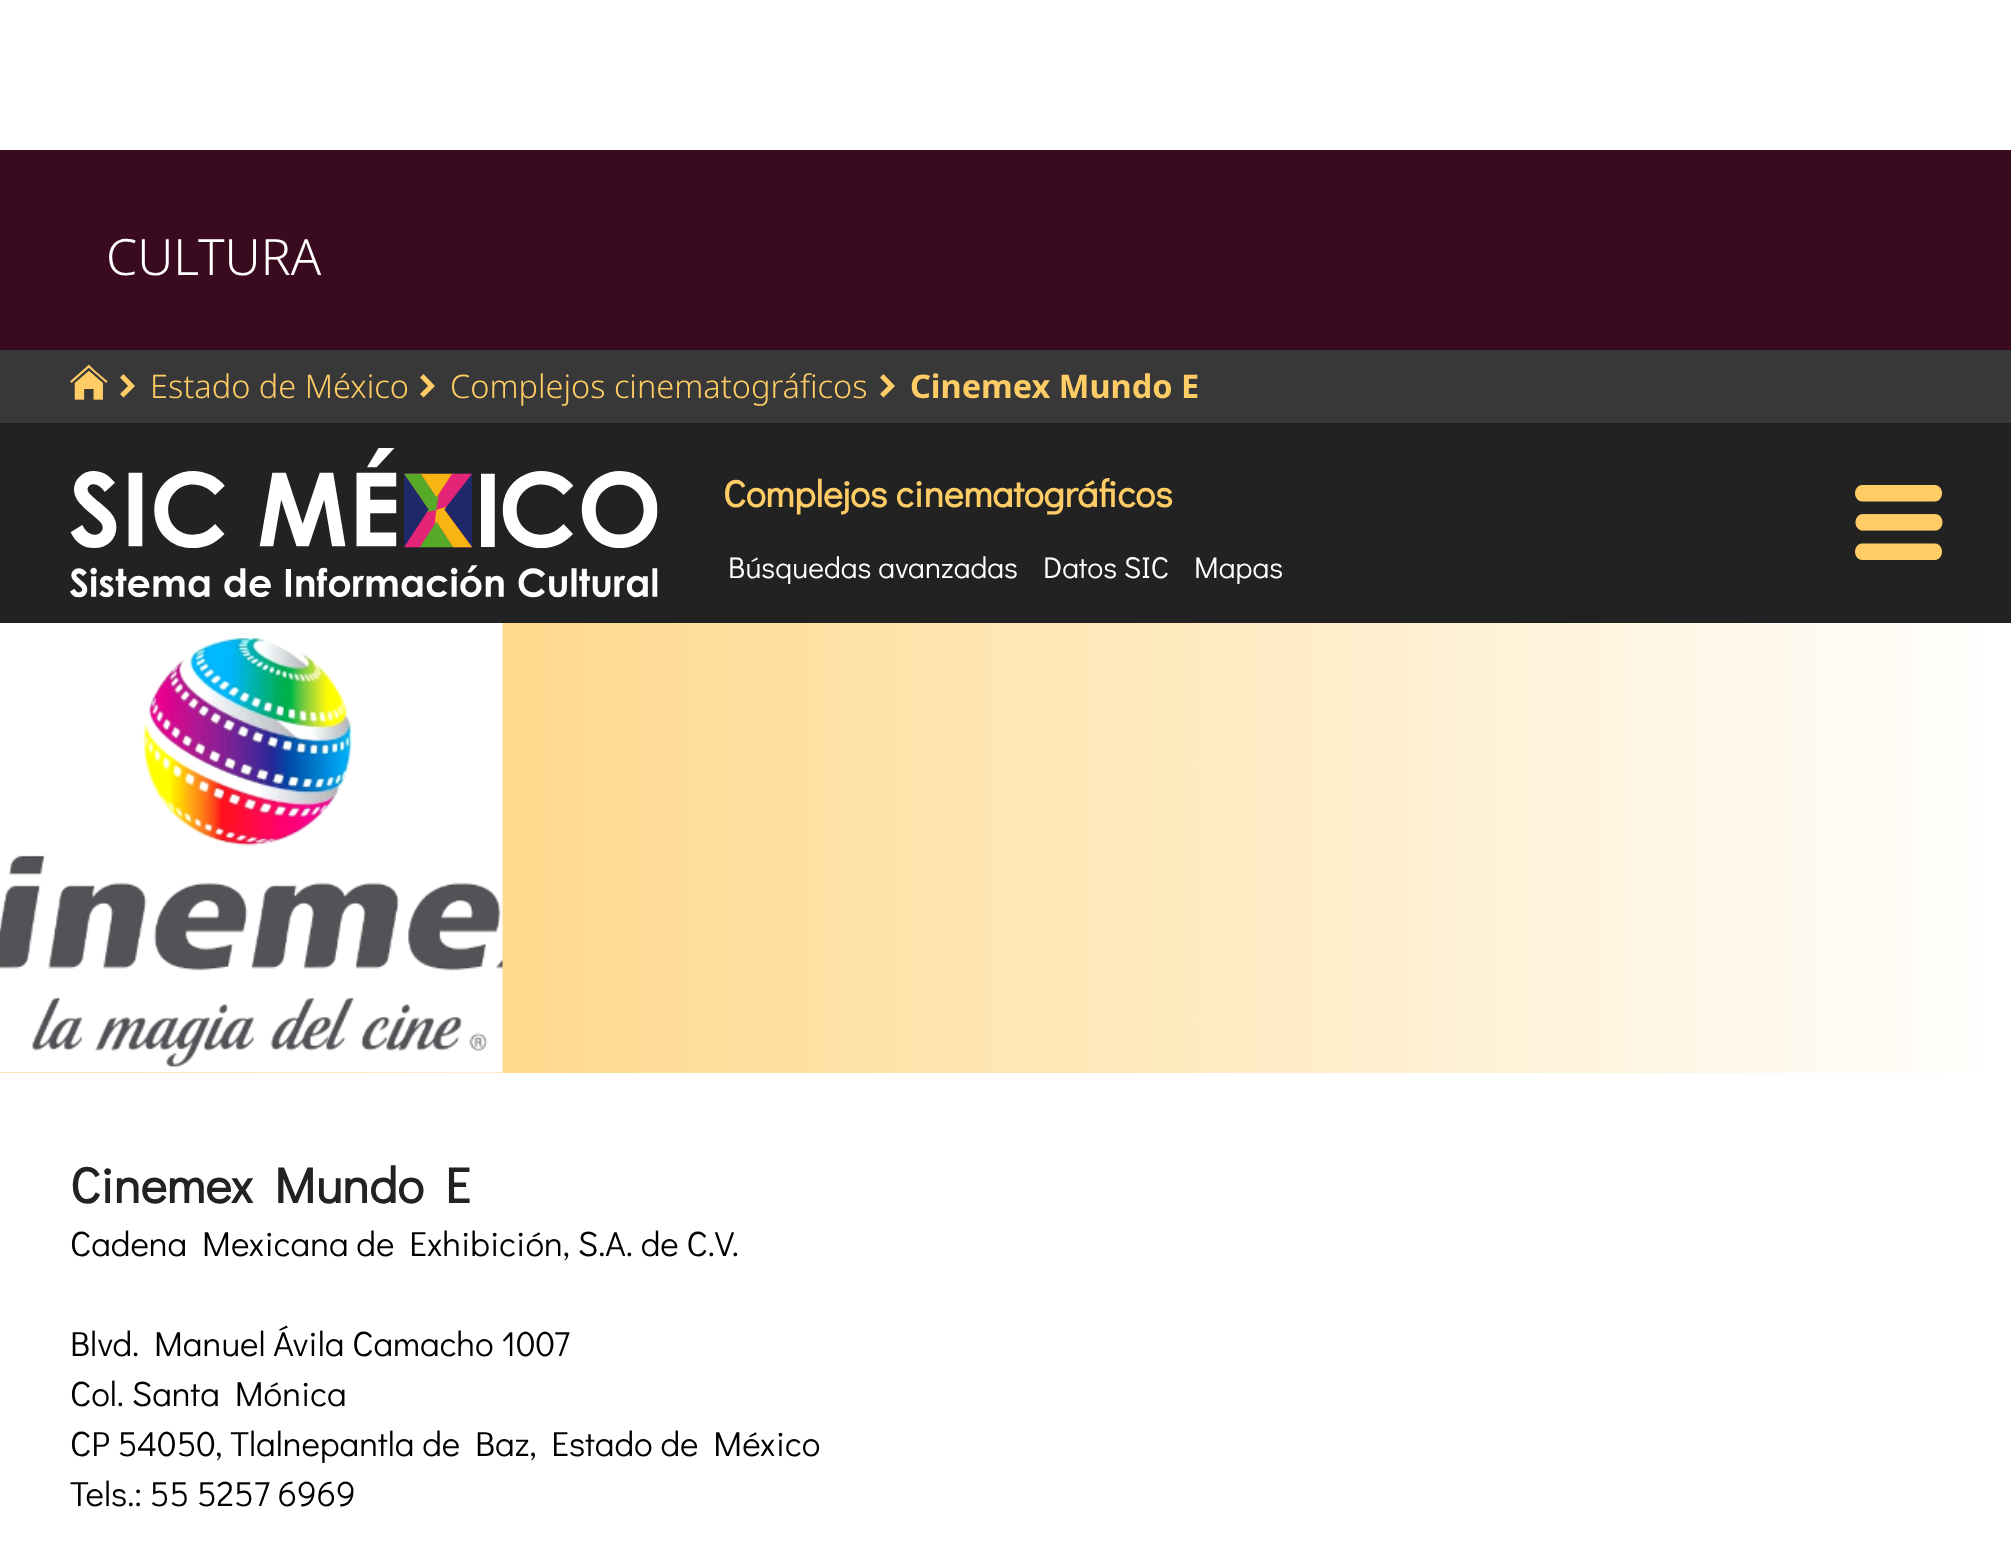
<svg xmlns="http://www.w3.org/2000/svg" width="2011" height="1550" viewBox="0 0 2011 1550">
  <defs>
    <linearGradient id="g1" gradientUnits="userSpaceOnUse" x1="0" y1="848" x2="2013" y2="848"><stop offset="0" stop-color="#ffcc66"/><stop offset="1" stop-color="#ffffff"/></linearGradient>
  </defs>
  <rect width="100%" height="100%" fill="#ffffff"/>
  <rect x="0" y="150" width="2011" height="200" fill="#3a0b1f"/>
  <text x="106" y="275" font-family="Noto Sans" font-size="50" font-weight="300" fill="#ffffff">CULTURA</text>
  <rect x="0" y="350" width="2011" height="73" fill="#373837"/>
  <image x="70" y="364" width="38" height="36" href="img1.png"/>
  <path d="M135 386L123.5 397.5L120 394L128 386L120 377.5L123.5 374Z" fill="#ffcc66"/>
  <text x="150" y="398" font-family="Noto Sans" font-size="32.5" font-weight="300" fill="#ffcc66">Estado de México</text>
  <path d="M435 386L423.5 397.5L420 394L428 386L420 377.5L423.5 374Z" fill="#ffcc66"/>
  <text x="450" y="398" font-family="Noto Sans" font-size="32.5" font-weight="300" fill="#ffcc66">Complejos cinematográficos</text>
  <path d="M895 386L883.5 397.5L880 394L888 386L880 377.5L883.5 374Z" fill="#ffcc66"/>
  <text x="910" y="398" font-family="Noto Sans" font-size="32.5" font-weight="bold" fill="#ffcc66">Cinemex Mundo E</text>
  <rect x="0" y="423" width="2011" height="200" fill="#212221"/>
  <image x="70" y="448" width="588" height="150" href="img2.png"/>
  <text x="723" y="507" font-family="Didact Gothic" font-size="37.5" font-weight="bold" fill="#ffcc66">Complejos cinematográficos</text>
  <text x="728" y="578" font-family="Didact Gothic" font-size="30" fill="#ffffff">Búsquedas avanzadas</text>
  <text x="1043" y="578" font-family="Didact Gothic" font-size="30" fill="#ffffff">Datos SIC</text>
  <text x="1194" y="578" font-family="Didact Gothic" font-size="30" fill="#ffffff">Mapas</text>
  <image x="1855" y="485" width="88" height="75" href="img3.png"/>
  <rect x="0" y="623" width="1980" height="450" fill="url(#g1)"/>
  <image x="0" y="623" width="503" height="450" href="img4.png"/>
  <text x="70" y="1203" font-family="Didact Gothic" font-size="50" font-weight="bold" fill="#212221">Cinemex Mundo E</text>
  <text x="70" y="1256" font-family="Didact Gothic" font-size="35" fill="#000000">Cadena Mexicana de Exhibición, S.A. de C.V.</text>
  <text x="70" y="1356" font-family="Didact Gothic" font-size="35" fill="#000000">Blvd. Manuel Ávila Camacho 1007</text>
  <text x="70" y="1406" font-family="Didact Gothic" font-size="35" fill="#000000">Col. Santa Mónica</text>
  <text x="70" y="1456" font-family="Didact Gothic" font-size="35" fill="#000000">CP 54050, Tlalnepantla de Baz, Estado de México</text>
  <text x="70" y="1506" font-family="Didact Gothic" font-size="35" fill="#000000">Tels.: 55 5257 6969</text>
</svg>
